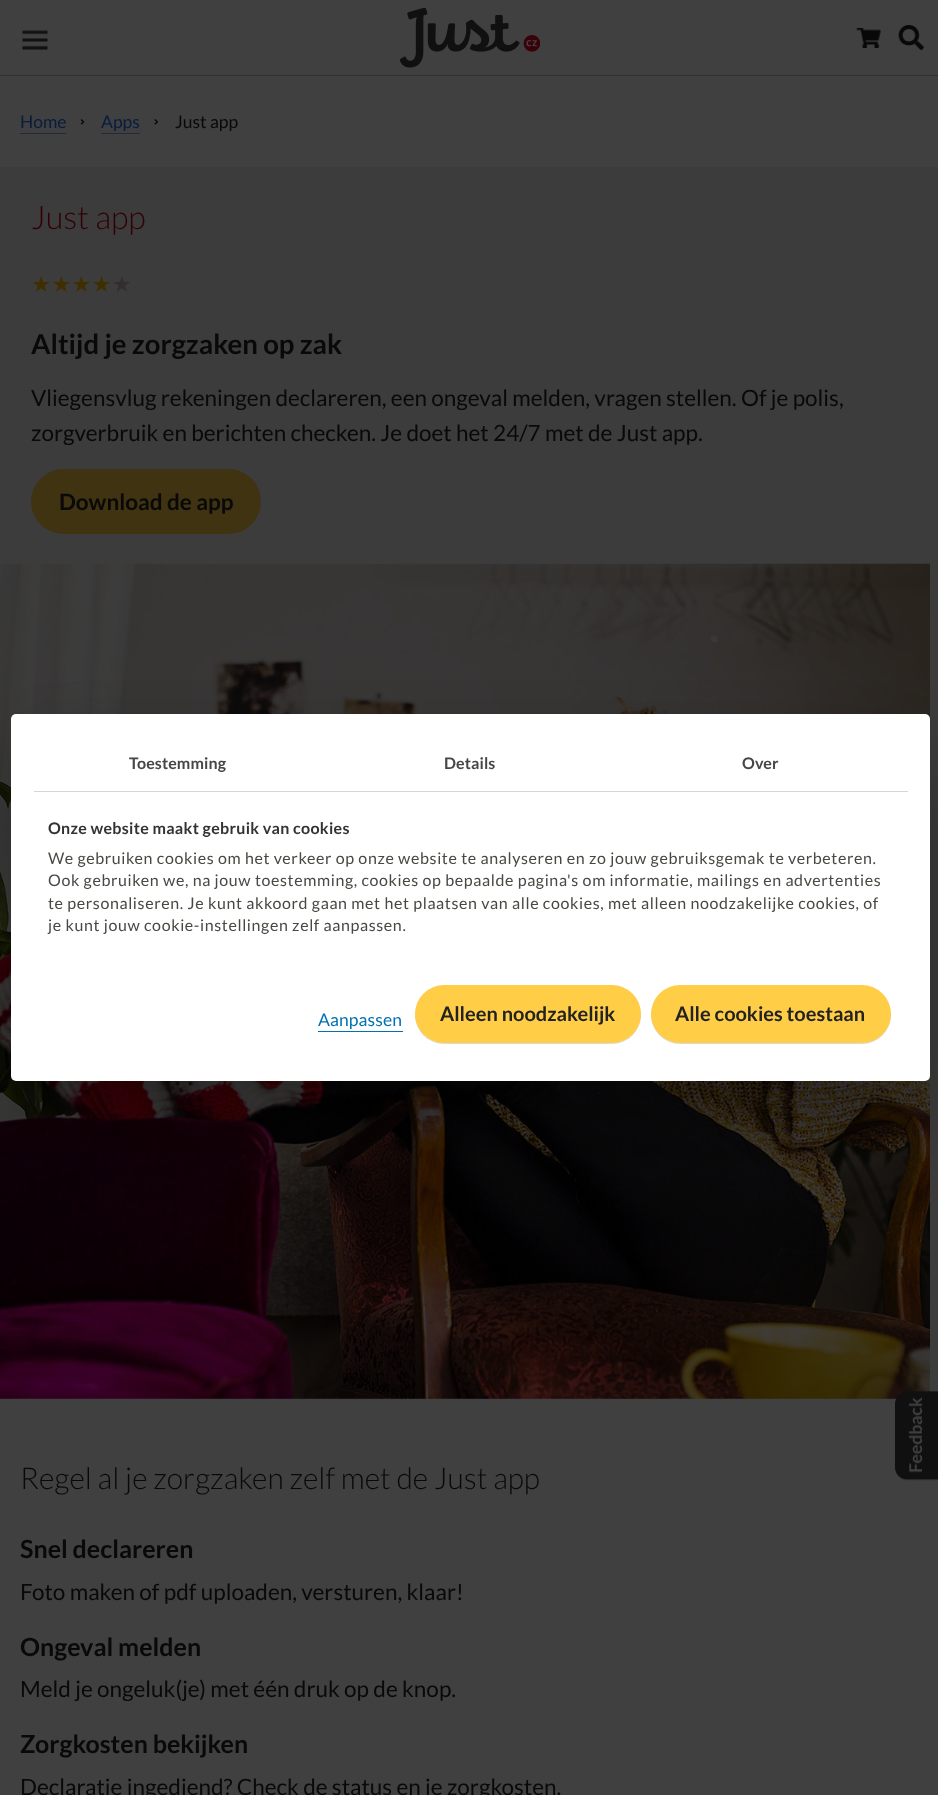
<svg xmlns="http://www.w3.org/2000/svg" width="938" height="1795" viewBox="0 0 938 1795">
  <defs>
    <linearGradient id="g1" gradientUnits="userSpaceOnUse" x1="31" y1="283" x2="131" y2="283"><stop offset="0.8" stop-color="#3f2f00"/><stop offset="0.8" stop-color="#322e2d"/></linearGradient>
    <filter id="blur1" x="-50%" y="-200%" width="200%" height="500%"><feGaussianBlur stdDeviation="42.5"/></filter>
    <filter id="blur2" x="-50%" y="-200%" width="200%" height="500%"><feGaussianBlur stdDeviation="0.5"/></filter>
  </defs>
  <rect width="100%" height="100%" fill="#404040"/>
  <rect x="0" y="75" width="938" height="1" fill="#322e2d"/>
  <image x="22" y="30" width="26" height="20" href="img1.png"/>
  <image x="399" y="8" width="141" height="60" href="img2.png"/>
  <image x="856" y="28" width="25" height="20" href="img3.png"/>
  <image x="898" y="25" width="26" height="25" href="img4.png"/>
  <text x="20" y="128" font-family="Lato" font-size="17.5" fill="#081c3d">Home</text>
  <rect x="20" y="133" width="46" height="1" fill="#1f2a3e"/>
  <image x="80" y="119" width="5" height="6" href="img5.png"/>
  <text x="101" y="128" font-family="Lato" font-size="17.5" fill="#081c3d">Apps</text>
  <rect x="101" y="133" width="39" height="1" fill="#1f2a3e"/>
  <image x="154" y="119" width="4" height="6" href="img6.png"/>
  <text x="175" y="128" font-family="Lato" font-size="17.5" fill="#090909">Just app</text>
  <rect x="0" y="167" width="938" height="1232" fill="#3d3c3c"/>
  <text x="31" y="229" font-family="Lato" font-size="32.5" font-weight="300" fill="#320008">Just app</text>
  <text x="31" y="292" font-family="DejaVu Sans" font-size="22.5" fill="url(#g1)">★★★★★</text>
  <text x="31" y="354" font-family="Lato" font-size="27.5" font-weight="bold" fill="#090909">Altijd je zorgzaken op zak</text>
  <text x="31" y="406" font-family="Lato" font-size="22.5" fill="#090909">Vliegensvlug rekeningen declareren, een ongeval melden, vragen stellen. Of je polis,</text>
  <text x="31" y="441" font-family="Lato" font-size="22.5" fill="#090909">zorgverbruik en berichten checken. Je doet het 24/7 met de Just app.</text>
  <rect x="31" y="469" width="230" height="65" rx="32.5" fill="#403312"/>
  <text x="59" y="510" font-family="Lato" font-size="22.5" font-weight="bold" fill="#090909">Download de app</text>
  <image x="0" y="563" width="930" height="836" href="img7.png"/>
  <text x="20" y="1489" font-family="Lato" font-size="30" font-weight="300" fill="#090909">Regel al je zorgzaken zelf met de Just app</text>
  <text x="20" y="1558" font-family="Lato" font-size="25" font-weight="bold" fill="#090909">Snel declareren</text>
  <text x="20" y="1600" font-family="Lato" font-size="22.5" fill="#090909">Foto maken of pdf uploaden, versturen, klaar!</text>
  <text x="20" y="1656" font-family="Lato" font-size="25" font-weight="bold" fill="#090909">Ongeval melden</text>
  <text x="20" y="1697" font-family="Lato" font-size="22.5" fill="#090909">Meld je ongeluk(je) met één druk op de knop.</text>
  <text x="20" y="1753" font-family="Lato" font-size="25" font-weight="bold" fill="#090909">Zorgkosten bekijken</text>
  <text x="20" y="1795" font-family="Lato" font-size="22.5" fill="#090909">Declaratie ingediend? Check de status en je zorgkosten.</text>
  <rect x="11" y="754" width="919" height="367" rx="5" fill="#000000" fill-opacity="0.3" filter="url(#blur1)"/>
  <rect x="11" y="714" width="919" height="367" rx="5" fill="#ffffff"/>
  <rect x="34" y="791" width="874" height="1" fill="#d6d6d6"/>
  <text x="129" y="769" font-family="Lato" font-size="16" font-weight="bold" letter-spacing="0.1" fill="#464649">Toestemming</text>
  <text x="444" y="769" font-family="Lato" font-size="16" font-weight="bold" letter-spacing="0.1" fill="#464649">Details</text>
  <text x="742" y="769" font-family="Lato" font-size="16" font-weight="bold" letter-spacing="0.1" fill="#464649">Over</text>
  <text x="48" y="834" font-family="Lato" font-size="16" font-weight="bold" letter-spacing="0.3" fill="#333333">Onze website maakt gebruik van cookies</text>
  <text x="48" y="864" font-family="Lato" font-size="16" letter-spacing="0.62" fill="#4a4843">We gebruiken cookies om het verkeer op onze website te analyseren en zo jouw gebruiksgemak te verbeteren.</text>
  <text x="48" y="886" font-family="Lato" font-size="16" letter-spacing="0.62" fill="#4a4843">Ook gebruiken we, na jouw toestemming, cookies op bepaalde pagina's om informatie, mailings en advertenties</text>
  <text x="48" y="909" font-family="Lato" font-size="16" letter-spacing="0.62" fill="#4a4843">te personaliseren. Je kunt akkoord gaan met het plaatsen van alle cookies, met alleen noodzakelijke cookies, of</text>
  <text x="48" y="931" font-family="Lato" font-size="16" letter-spacing="0.62" fill="#4a4843">je kunt jouw cookie-instellingen zelf aanpassen.</text>
  <text x="318" y="1026" font-family="Lato" font-size="17.5" letter-spacing="0.1" fill="#0071b2">Aanpassen</text>
  <rect x="318" y="1031" width="85" height="1" fill="#0071b2"/>
  <rect x="415" y="986" width="226" height="58" rx="29" fill="#000000" fill-opacity="0.14" filter="url(#blur2)"/>
  <rect x="415" y="985" width="226" height="58" rx="29" fill="#ffcd46"/>
  <text x="440" y="1021" font-family="Lato" font-size="20" font-weight="bold" fill="#222222">Alleen noodzakelijk</text>
  <rect x="651" y="986" width="240" height="58" rx="29" fill="#000000" fill-opacity="0.14" filter="url(#blur2)"/>
  <rect x="651" y="985" width="240" height="58" rx="29" fill="#ffcd46"/>
  <text x="675" y="1021" font-family="Lato" font-size="20" font-weight="bold" fill="#222222">Alle cookies toestaan</text>
  <image x="895" y="1391" width="43" height="90" href="img8.png"/>
</svg>
